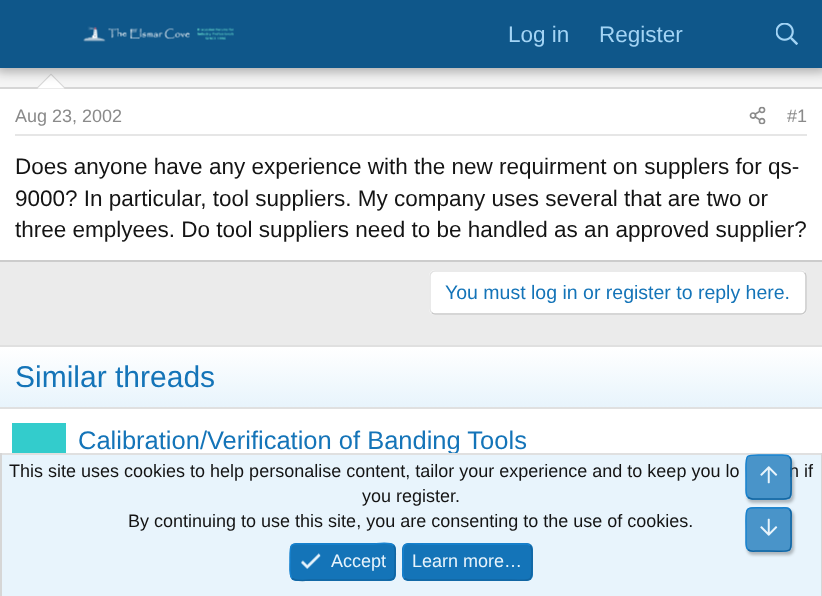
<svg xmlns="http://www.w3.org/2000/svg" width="822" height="596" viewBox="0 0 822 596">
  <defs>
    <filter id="blur1" x="-50%" y="-200%" width="200%" height="500%"><feGaussianBlur stdDeviation="6"/></filter>
    <linearGradient id="g1" gradientUnits="userSpaceOnUse" x1="411" y1="407" x2="411" y2="347"><stop offset="0" stop-color="#e8f4fc"/><stop offset="1" stop-color="#ffffff"/></linearGradient>
    <clipPath id="clip1"><path d="M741 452H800V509H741ZM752 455H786C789.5 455 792 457.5 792 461V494C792 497.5 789.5 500 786 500H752C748.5 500 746 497.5 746 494V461C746 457.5 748.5 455 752 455Z" clip-rule="evenodd"/></clipPath>
    <filter id="blur2" x="-50%" y="-200%" width="200%" height="500%"><feGaussianBlur stdDeviation="1.5"/></filter>
    <clipPath id="clip2"><path d="M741 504H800V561H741ZM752 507H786C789.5 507 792 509.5 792 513V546C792 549.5 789.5 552 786 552H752C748.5 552 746 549.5 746 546V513C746 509.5 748.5 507 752 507Z" clip-rule="evenodd"/></clipPath>
  </defs>
  <rect width="100%" height="100%" fill="#ebebeb"/>
  <rect x="0" y="89" width="822" height="171" fill="#ffffff"/>
  <rect x="0" y="68" width="822" height="19" fill="#f5f5f5"/>
  <rect x="0" y="87" width="822" height="2" fill="#d6d6d6"/>
  <path d="M66 88.5H36L51 73.5Z" fill="#d6d6d6"/>
  <path d="M64.5 88.5H37.5L51 75Z" fill="#ffffff"/>
  <rect x="-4" y="-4" width="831" height="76" fill="#000000" fill-opacity="0.3" filter="url(#blur1)"/>
  <rect x="0" y="0" width="822" height="68" fill="#0f578a"/>
  <image x="83" y="26" width="151" height="16" href="img1.png"/>
  <text x="508" y="42" font-family="Liberation Sans" font-size="22.5" fill="#a3d4f5">Log in</text>
  <text x="599" y="42" font-family="Liberation Sans" font-size="22.5" fill="#a3d4f5">Register</text>
  <image x="776" y="23" width="22" height="22" href="img2.png"/>
  <rect x="0" y="260" width="822" height="2" fill="#cccccc"/>
  <rect x="15" y="134" width="792" height="2" fill="#e6e6e6"/>
  <text x="15" y="122" font-family="Liberation Sans" font-size="18" fill="#8a8a8a">Aug 23, 2002</text>
  <image x="749" y="106" width="17" height="19" href="img3.png"/>
  <text x="787" y="122" font-family="Liberation Sans" font-size="18" fill="#8a8a8a">#1</text>
  <text x="15" y="174" font-family="Liberation Sans" font-size="22.5" fill="#141414">Does anyone have any experience with the new requirment on supplers for qs-</text>
  <text x="15" y="206" font-family="Liberation Sans" font-size="22.5" fill="#141414">9000? In particular, tool suppliers. My company uses several that are two or</text>
  <text x="15" y="237" font-family="Liberation Sans" font-size="22.5" fill="#141414">three emplyees. Do tool suppliers need to be handled as an approved supplier?</text>
  <rect x="429" y="270" width="378" height="45" rx="6" fill="#ffffff"/>
  <path d="M804.5 272.5C805.5 273.5 806 274.5 806 276V309C806 310.5 805.5 311.5 804.5 312.5C803.5 313.5 802.5 314 801 314H435C433.5 314 432.5 313.5 431.5 312.5" fill="none" stroke="#c9c9c9" stroke-width="1.5"/>
  <path d="M431.5 312.5C430.5 311.5 430 310.5 430 309V276C430 274.5 430.5 273.5 431.5 272.5C432.5 271.5 433.5 271 435 271H801C802.5 271 803.5 271.5 804.5 272.5" fill="none" stroke="#e3e3e3" stroke-width="1.5"/>
  <text x="445" y="299" font-family="Liberation Sans" font-size="19.5" fill="#1474b8">You must log in or register to reply here.</text>
  <rect x="0" y="409" width="822" height="44" fill="#ffffff"/>
  <rect x="0" y="345" width="822" height="2" fill="#e0e0e0"/>
  <rect x="0" y="347" width="822" height="60" fill="url(#g1)"/>
  <rect x="0" y="407" width="822" height="2" fill="#e0e0e0"/>
  <text x="15" y="387" font-family="Liberation Sans" font-size="30" fill="#1474b8">Similar threads</text>
  <rect x="12" y="423" width="54" height="30" fill="#33cccc"/>
  <text x="78" y="449" font-family="Liberation Sans" font-size="25.5" fill="#1474b8">Calibration/Verification of Banding Tools</text>
  <rect x="2" y="455" width="819" height="141" fill="#e8f4fc"/>
  <rect x="0" y="453" width="822" height="2" fill="#e0e0e0"/>
  <g clip-path="url(#clip1)">
    <rect x="747" y="458" width="47" height="45" rx="6" fill="#000000" fill-opacity="0.25" filter="url(#blur2)"/>
  </g>
  <text x="789" y="477" font-family="Liberation Sans" font-size="18" fill="#141414">n if</text>
  <rect x="746" y="455" width="46" height="45" rx="6" fill="#1474b8" fill-opacity="0.75"/>
  <path d="M789.5 457C792 459 791 463 791 466V477C791 502.5 794.5 499 769 499H757C754.5 499 750 499.5 748 497" fill="none" stroke="#1265a1" stroke-width="1.5"/>
  <path d="M748 497C745.5 495 746 491 746 488V477C746 451.5 743 455 769 455H780C783 455 787.5 454.5 789.5 457" fill="none" stroke="#1782cf" stroke-width="1.5"/>
  <image x="760" y="466" width="18" height="18" href="img4.png"/>
  <g clip-path="url(#clip2)">
    <rect x="747" y="510" width="47" height="45" rx="6" fill="#000000" fill-opacity="0.25" filter="url(#blur2)"/>
  </g>
  <rect x="746" y="507" width="46" height="45" rx="6" fill="#1474b8" fill-opacity="0.75"/>
  <path d="M789.5 509.5C792 511.5 791 515.5 791 518.5V529.5C791 555 794.5 551 769 551H757C754.5 551 750 552 748 549.5" fill="none" stroke="#1265a1" stroke-width="1.5"/>
  <path d="M748 549.5C745.5 547.5 746 543.5 746 540.5V529.5C746 504 743 508 769 508H780C783 508 787.5 507 789.5 509.5" fill="none" stroke="#1782cf" stroke-width="1.5"/>
  <image x="760" y="518" width="18" height="18" href="img5.png"/>
  <rect x="821" y="453" width="1" height="143" fill="#d6d6d6"/>
  <rect x="0" y="453" width="2" height="143" fill="#d6d6d6"/>
  <text x="9" y="477" font-family="Liberation Sans" font-size="18" fill="#141414">This site uses cookies to help personalise content, tailor your experience and to keep you lo</text>
  <text x="362" y="502" font-family="Liberation Sans" font-size="18" fill="#141414">you register.</text>
  <text x="128" y="527" font-family="Liberation Sans" font-size="18" fill="#141414">By continuing to use this site, you are consenting to the use of cookies.</text>
  <rect x="290" y="543" width="106" height="38" rx="6" fill="#1474b8"/>
  <path d="M393.5 545.5C396.5 548 395 558 395 562C395 583 397 580 374 580H311C309.5 580 295.5 582 292 578" fill="none" stroke="#1265a1" stroke-width="1.5"/>
  <path d="M292 578C289 575.5 290 565.5 290 562C290 540.5 288.5 544 311 544H374C376 544 390 541.5 393.5 545.5" fill="none" stroke="#1782cf" stroke-width="1.5"/>
  <image x="301" y="553" width="20" height="17" href="img6.png"/>
  <text x="331" y="567" font-family="Liberation Sans" font-size="18" fill="#e8f4fc">Accept</text>
  <rect x="402" y="543" width="131" height="38" rx="6" fill="#1474b8"/>
  <path d="M530 545.5C533 548 532 558 532 562C532 584.5 533 580 507 580H408C406.5 579.5 405.5 579 404.5 578" fill="none" stroke="#1265a1" stroke-width="1.5"/>
  <path d="M404.5 578C401.5 575.5 403 565.5 403 562C403 539 401.5 544 428 544H526.5C528 544 529 544.5 530 545.5" fill="none" stroke="#1782cf" stroke-width="1.5"/>
  <text x="412" y="567" font-family="Liberation Sans" font-size="18" fill="#e8f4fc">Learn more…</text>
</svg>
